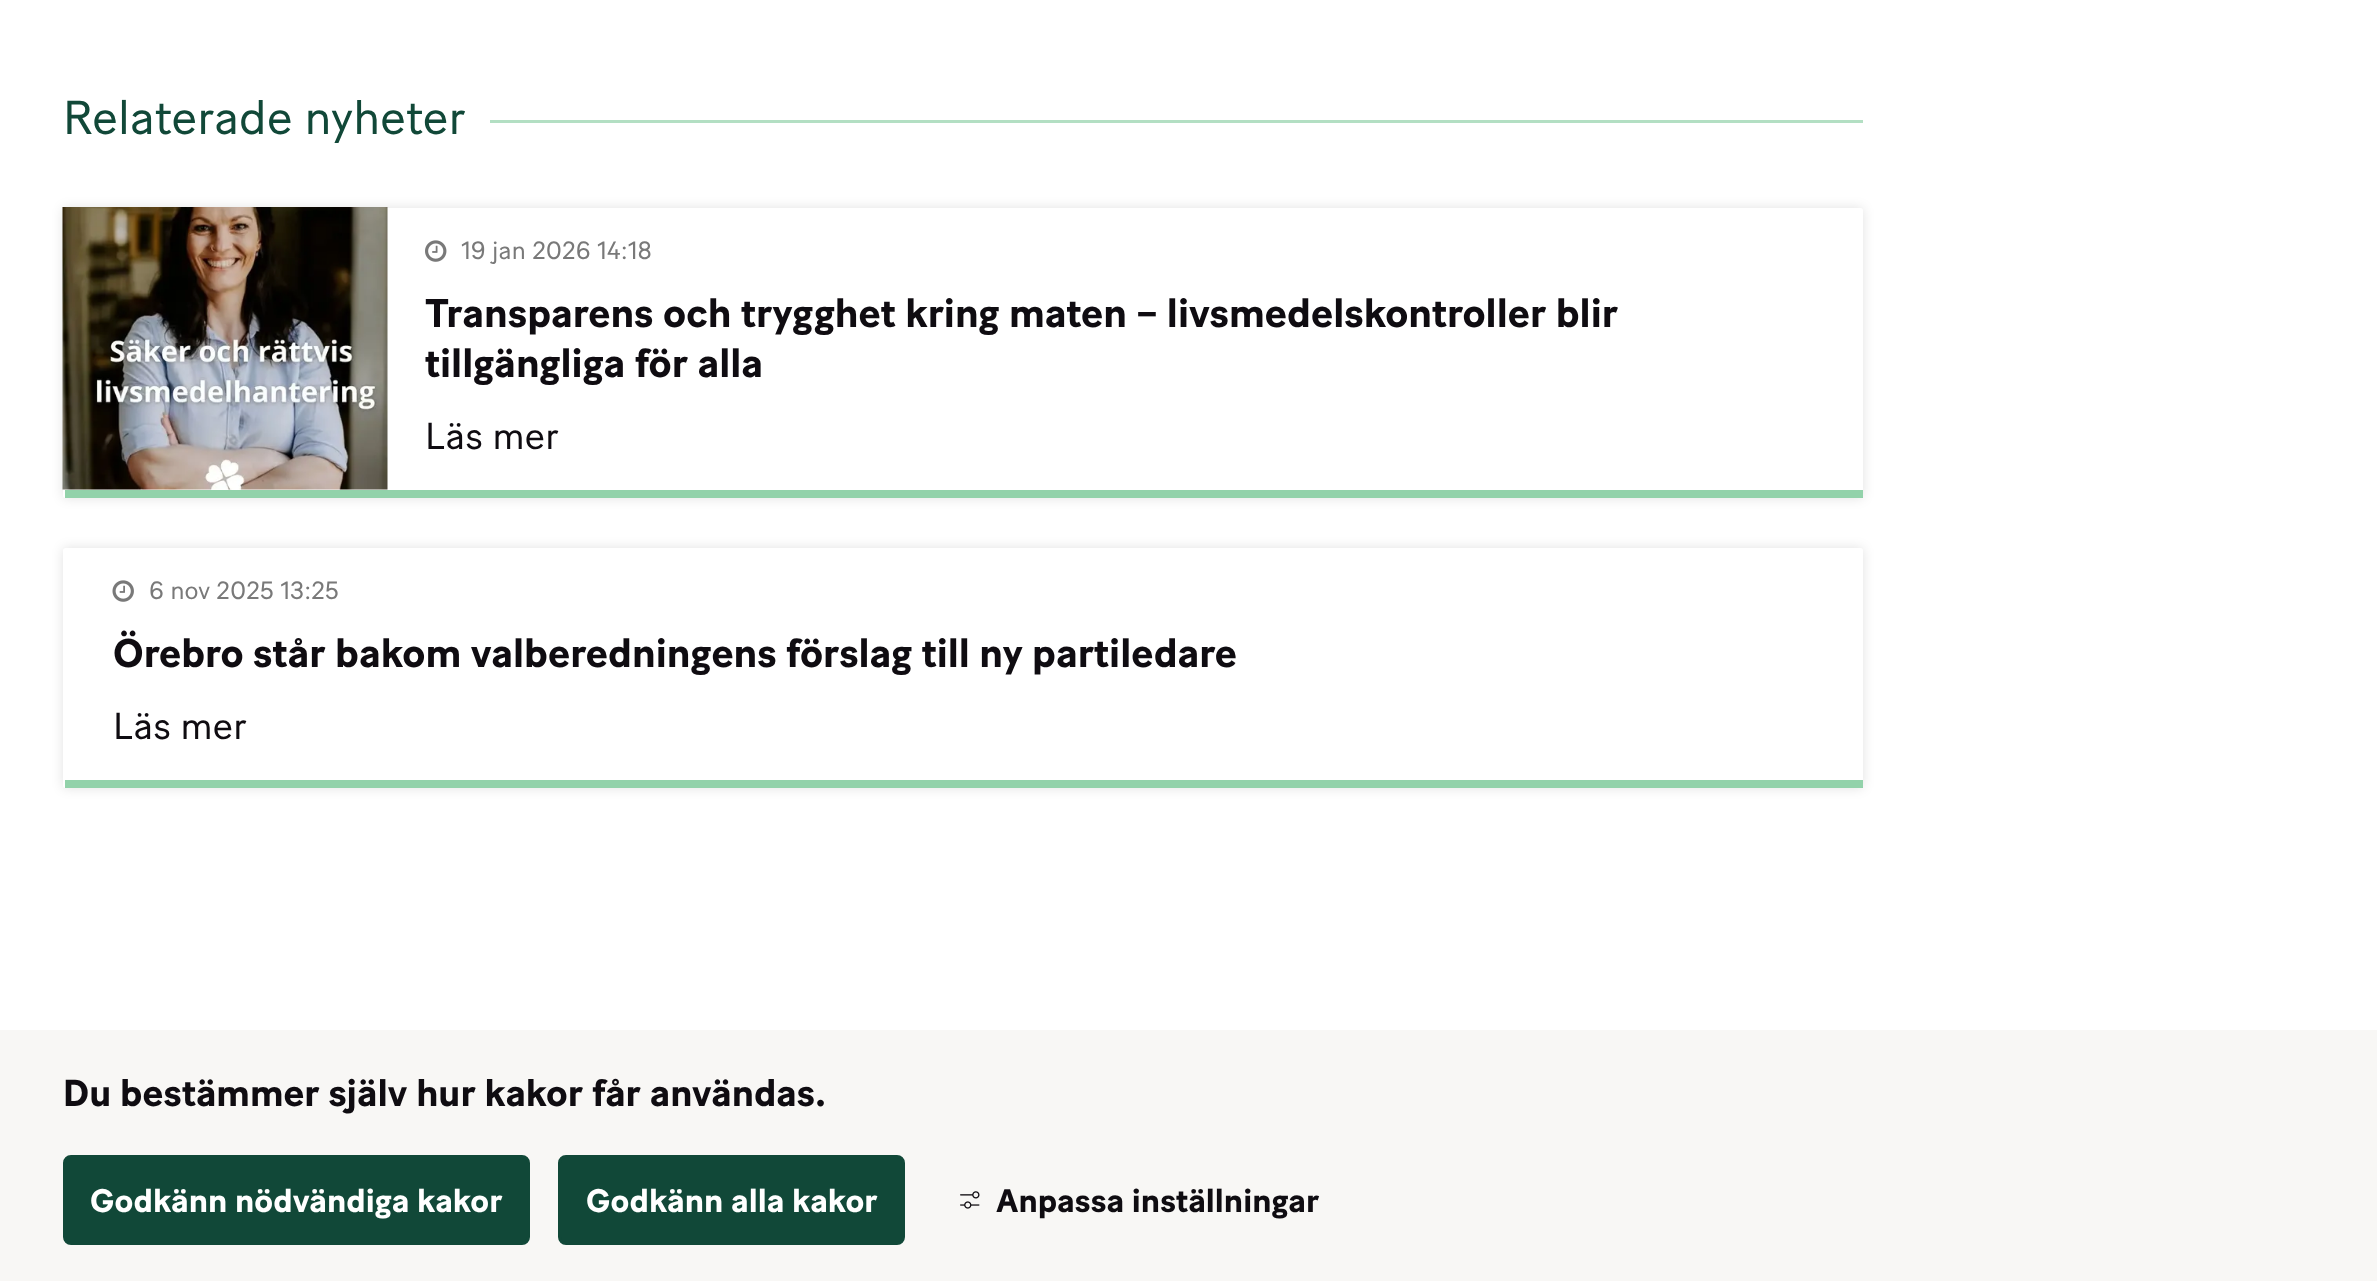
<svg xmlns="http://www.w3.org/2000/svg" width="2377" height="1281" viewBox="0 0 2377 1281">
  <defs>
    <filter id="blur1" x="-50%" y="-200%" width="200%" height="500%"><feGaussianBlur stdDeviation="6"/></filter>
  </defs>
  <rect width="100%" height="100%" fill="#ffffff"/>
  <text x="63" y="134" font-family="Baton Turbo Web" font-size="47.5" fill="#114838">Relaterade nyheter</text>
  <rect x="490" y="120" width="1373" height="3" fill="#b3dfc3"/>
  <rect x="63" y="208" width="1800" height="290" rx="2.5" fill="#000000" fill-opacity="0.12" filter="url(#blur1)"/>
  <rect x="63" y="208" width="1800" height="290" rx="2.5" fill="#ffffff"/>
  <rect x="65" y="490" width="1798" height="8" fill="#40af69" fill-opacity="0.57"/>
  <image x="62" y="207" width="326" height="283" href="img1.png"/>
  <image x="425" y="240" width="22" height="22" href="img2.png"/>
  <text x="461" y="259" font-family="Baton Turbo Web" font-size="25" fill="#797979">19 jan 2026 14:18</text>
  <text x="425" y="327" font-family="Baton Turbo Web" font-size="40" font-weight="bold" fill="#0f0c11">Transparens och trygghet kring maten – livsmedelskontroller blir</text>
  <text x="425" y="377" font-family="Baton Turbo Web" font-size="40" font-weight="bold" fill="#0f0c11">tillgängliga för alla</text>
  <text x="425" y="449" font-family="Baton Turbo Web" font-size="37.5" fill="#0f0c11">Läs mer</text>
  <rect x="63" y="548" width="1800" height="240" rx="2.5" fill="#000000" fill-opacity="0.12" filter="url(#blur1)"/>
  <rect x="63" y="548" width="1800" height="240" rx="2.5" fill="#ffffff"/>
  <rect x="65" y="780" width="1798" height="8" fill="#40af69" fill-opacity="0.57"/>
  <image x="112" y="580" width="22" height="22" href="img3.png"/>
  <text x="149" y="599" font-family="Baton Turbo Web" font-size="25" fill="#797979">6 nov 2025 13:25</text>
  <text x="113" y="667" font-family="Baton Turbo Web" font-size="40" font-weight="bold" fill="#0f0c11">Örebro står bakom valberedningens förslag till ny partiledare</text>
  <text x="113" y="739" font-family="Baton Turbo Web" font-size="37.5" fill="#0f0c11">Läs mer</text>
  <rect x="0" y="1030" width="2377" height="251" fill="#f8f7f5"/>
  <text x="63" y="1106" font-family="Baton Turbo Web" font-size="37.5" font-weight="bold" fill="#0f0c11">Du bestämmer själv hur kakor får användas.</text>
  <rect x="64.5" y="1156.5" width="464" height="87" rx="6.5" fill="#114838" stroke="#114838" stroke-width="3"/>
  <text x="90" y="1212" font-family="Baton Turbo Web" font-size="32.5" font-weight="bold" fill="#ffffff">Godkänn nödvändiga kakor</text>
  <rect x="559.5" y="1156.5" width="344" height="87" rx="6.5" fill="#114838" stroke="#114838" stroke-width="3"/>
  <text x="586" y="1212" font-family="Baton Turbo Web" font-size="32.5" font-weight="bold" fill="#ffffff">Godkänn alla kakor</text>
  <image x="960" y="1191" width="20" height="18" href="img4.png"/>
  <text x="996" y="1212" font-family="Baton Turbo Web" font-size="32.5" font-weight="bold" fill="#0f0c11">Anpassa inställningar</text>
</svg>
